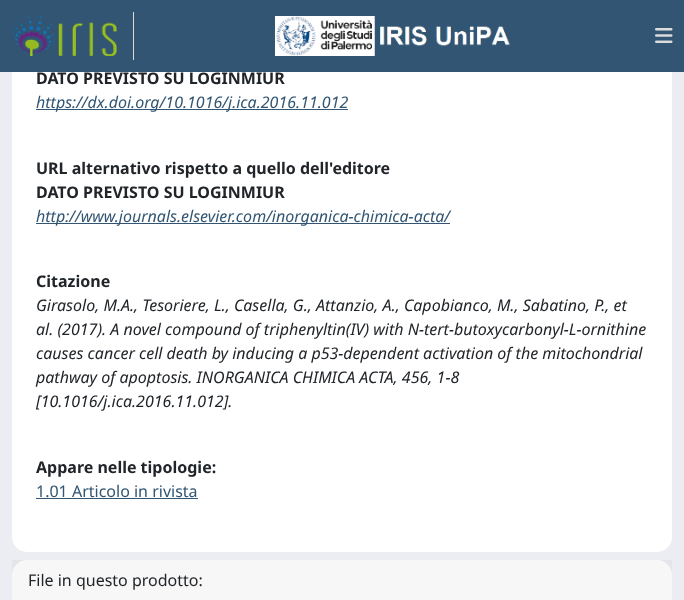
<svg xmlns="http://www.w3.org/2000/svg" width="684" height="600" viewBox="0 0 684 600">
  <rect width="100%" height="100%" fill="#ecedf2"/>
  <rect x="12" y="-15" width="660" height="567" rx="15" fill="#ffffff"/>
  <rect x="0" y="0" width="684" height="72" fill="#315572"/>
  <rect x="133" y="12" width="1" height="48" fill="#dddddd"/>
  <image x="12" y="16" width="105" height="40" href="img1.png"/>
  <image x="275" y="16" width="235" height="40" href="img2.png"/>
  <image x="655" y="28" width="18" height="15" href="img3.png"/>
  <text x="36" y="84" font-family="Noto Sans" font-size="16" font-weight="bold" fill="#212529">DATO PREVISTO SU LOGINMIUR</text>
  <rect x="36" y="109" width="312" height="1" fill="#315572"/>
  <text x="36" y="108" font-family="Noto Sans" font-size="16" font-style="italic" fill="#315572">https://dx.doi.org/10.1016/j.ica.2016.11.012</text>
  <text x="36" y="174" font-family="Noto Sans" font-size="16" font-weight="bold" fill="#212529">URL alternativo rispetto a quello dell'editore</text>
  <text x="36" y="198" font-family="Noto Sans" font-size="16" font-weight="bold" fill="#212529">DATO PREVISTO SU LOGINMIUR</text>
  <rect x="36" y="223" width="414" height="1" fill="#315572"/>
  <text x="36" y="222" font-family="Noto Sans" font-size="16" font-style="italic" fill="#315572">http://www.journals.elsevier.com/inorganica-chimica-acta/</text>
  <text x="36" y="287" font-family="Noto Sans" font-size="16" font-weight="bold" fill="#212529">Citazione</text>
  <text x="36" y="311" font-family="Noto Sans" font-size="16" font-style="italic" fill="#212529">Girasolo, M.A., Tesoriere, L., Casella, G., Attanzio, A., Capobianco, M., Sabatino, P., et</text>
  <text x="36" y="335" font-family="Noto Sans" font-size="16" font-style="italic" fill="#212529">al. (2017). A novel compound of triphenyltin(IV) with N-tert-butoxycarbonyl-L-ornithine</text>
  <text x="36" y="359" font-family="Noto Sans" font-size="16" font-style="italic" fill="#212529">causes cancer cell death by inducing a p53-dependent activation of the mitochondrial</text>
  <text x="36" y="383" font-family="Noto Sans" font-size="16" font-style="italic" fill="#212529">pathway of apoptosis. INORGANICA CHIMICA ACTA, 456, 1-8</text>
  <text x="36" y="407" font-family="Noto Sans" font-size="16" font-style="italic" fill="#212529">[10.1016/j.ica.2016.11.012].</text>
  <text x="36" y="473" font-family="Noto Sans" font-size="16" font-weight="bold" fill="#212529">Appare nelle tipologie:</text>
  <text x="36" y="497" font-family="Noto Sans" font-size="16" fill="#315572">1.01 Articolo in rivista</text>
  <rect x="36" y="498" width="162" height="1" fill="#315572"/>
  <rect x="12" y="560" width="660" height="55" rx="15" fill="#ffffff"/>
  <rect x="12" y="560" width="660" height="40" fill="#000000" fill-opacity="0.03"/>
  <text x="28" y="586" font-family="Noto Sans" font-size="16" fill="#212529">File in questo prodotto:</text>
</svg>
